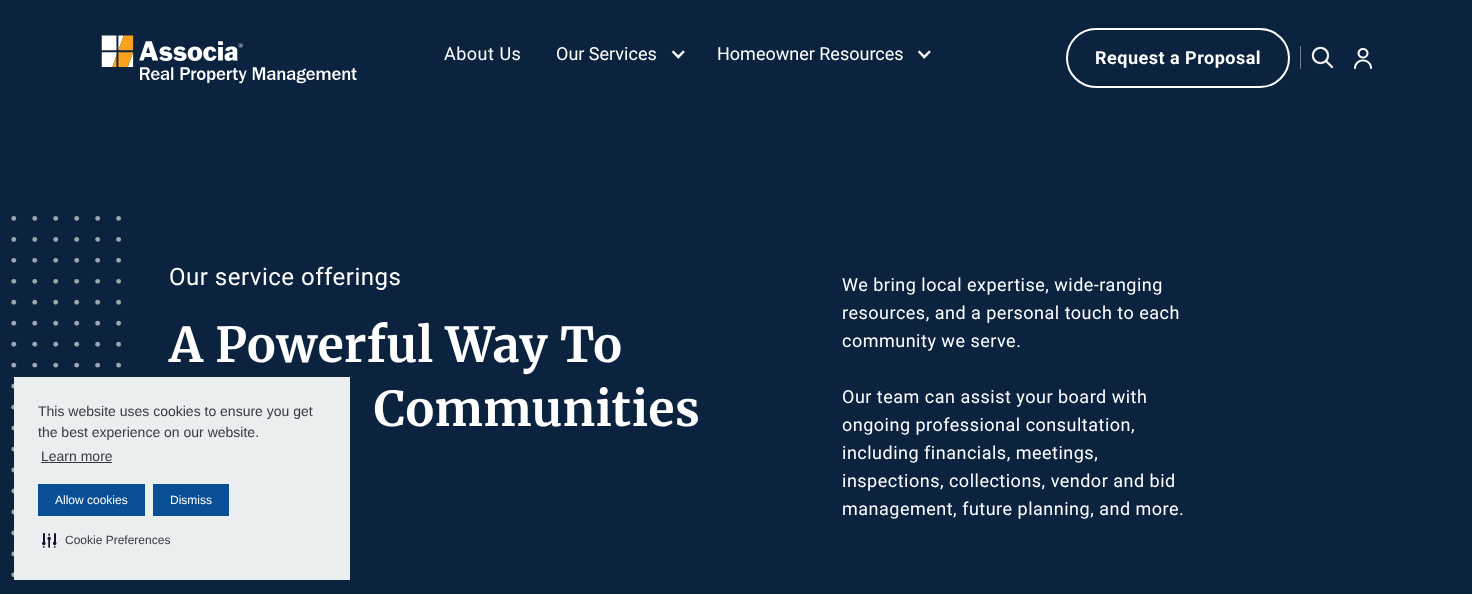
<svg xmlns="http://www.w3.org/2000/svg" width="1472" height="594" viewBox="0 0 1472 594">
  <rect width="100%" height="100%" fill="#0c233f"/>
  <image x="101" y="35" width="256" height="49" href="img1.png"/>
  <text x="444" y="60" font-family="Roboto" font-size="18" letter-spacing="0.5" fill="#ffffff">About Us</text>
  <text x="556" y="60" font-family="Roboto" font-size="18" fill="#ffffff">Our Services</text>
  <image x="671" y="50" width="14" height="9" href="img2.png"/>
  <text x="717" y="60" font-family="Roboto" font-size="18" fill="#ffffff">Homeowner Resources</text>
  <image x="917" y="50" width="14" height="9" href="img2.png"/>
  <rect x="1067" y="29" width="222" height="58" rx="29" fill="none" stroke="#ffffff" stroke-width="2"/>
  <text x="1095" y="64" font-family="Roboto" font-size="18" font-weight="bold" letter-spacing="0.5" fill="#ffffff">Request a Proposal</text>
  <rect x="1300" y="46" width="1" height="23" fill="#707d8e"/>
  <image x="1311" y="46" width="23" height="23" href="img3.png"/>
  <image x="1354" y="48" width="18" height="21" href="img4.png"/>
  <image x="11" y="216" width="111" height="362" href="img5.png"/>
  <text x="169" y="285" font-family="Roboto" font-size="24" letter-spacing="0.5" fill="#ffffff">Our service offerings</text>
  <text x="169" y="362" font-family="Merriweather" font-size="48" font-weight="bold" letter-spacing="0.5" fill="#ffffff">A Powerful Way To</text>
  <text x="374" y="426" font-family="Merriweather" font-size="48" font-weight="bold" letter-spacing="0.5" fill="#ffffff">Communities</text>
  <text x="842" y="291" font-family="Roboto" font-size="18" letter-spacing="0.5" fill="#ffffff">We bring local expertise, wide-ranging</text>
  <text x="842" y="319" font-family="Roboto" font-size="18" letter-spacing="0.5" fill="#ffffff">resources, and a personal touch to each</text>
  <text x="842" y="347" font-family="Roboto" font-size="18" letter-spacing="0.5" fill="#ffffff">community we serve.</text>
  <text x="842" y="403" font-family="Roboto" font-size="18" letter-spacing="0.5" fill="#ffffff">Our team can assist your board with</text>
  <text x="842" y="431" font-family="Roboto" font-size="18" letter-spacing="0.5" fill="#ffffff">ongoing professional consultation,</text>
  <text x="842" y="459" font-family="Roboto" font-size="18" letter-spacing="0.5" fill="#ffffff">including financials, meetings,</text>
  <text x="842" y="487" font-family="Roboto" font-size="18" letter-spacing="0.5" fill="#ffffff">inspections, collections, vendor and bid</text>
  <text x="842" y="515" font-family="Roboto" font-size="18" letter-spacing="0.5" fill="#ffffff">management, future planning, and more.</text>
  <rect x="14" y="377" width="336" height="203" fill="#ebeeef"/>
  <text x="38" y="416" font-family="Liberation Sans" font-size="14" fill="#35383e">This website uses cookies to ensure you get</text>
  <text x="38" y="437" font-family="Liberation Sans" font-size="14" fill="#35383e">the best experience on our website.</text>
  <text x="41" y="461" font-family="Liberation Sans" font-size="14" fill="#35383e">Learn more</text>
  <rect x="41" y="462" width="71" height="1" fill="#35383e"/>
  <rect x="38" y="484" width="107" height="32" fill="#094f95"/>
  <text x="55" y="504" font-family="Liberation Sans" font-size="12" fill="#ffffff">Allow cookies</text>
  <rect x="153" y="484" width="76" height="32" fill="#094f95"/>
  <text x="170" y="504" font-family="Liberation Sans" font-size="12" fill="#ffffff">Dismiss</text>
  <image x="42" y="533" width="15" height="15" href="img6.png"/>
  <text x="65" y="544" font-family="Liberation Sans" font-size="12" fill="#35383e">Cookie Preferences</text>
</svg>
